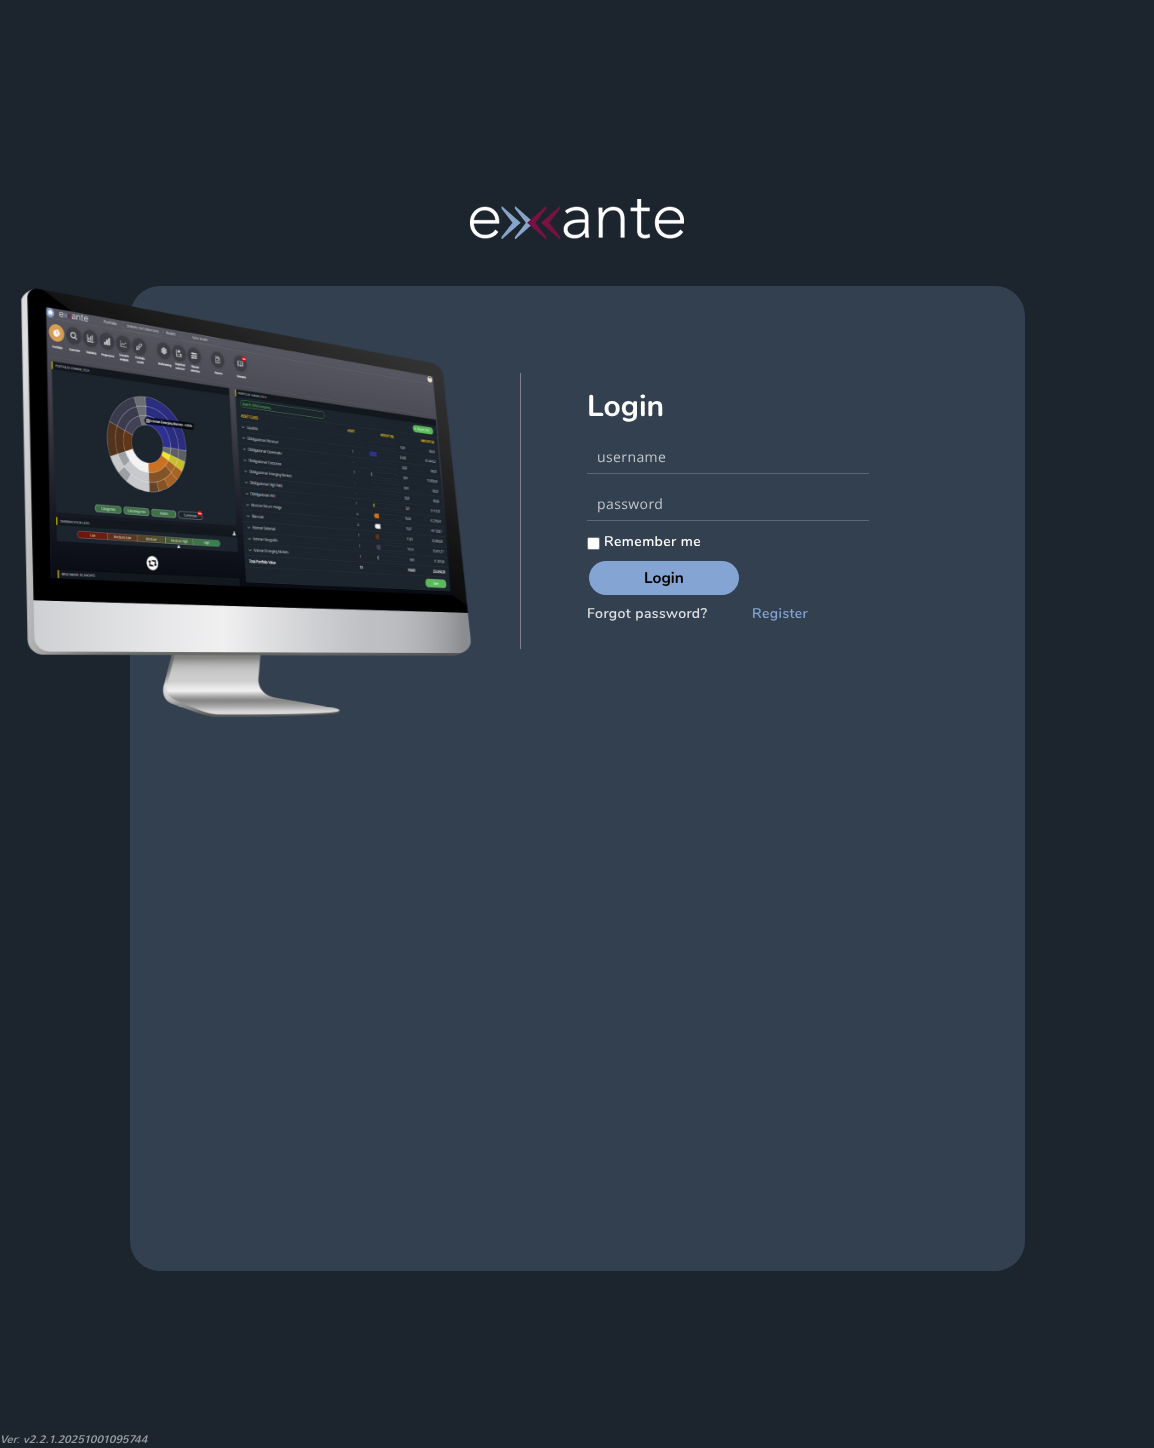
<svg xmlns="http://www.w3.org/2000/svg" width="1154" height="1448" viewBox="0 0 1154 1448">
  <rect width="100%" height="100%" fill="#1c252e"/>
  <image x="470" y="199" width="214" height="40" href="img1.png"/>
  <rect x="130" y="286" width="895" height="985" rx="30" fill="#324050"/>
  <image x="21" y="288" width="451" height="429" href="img2.png"/>
  <rect x="520" y="373" width="1" height="276" fill="#7c8188"/>
  <text x="587" y="416" font-family="Nunito" font-size="30" font-weight="bold" fill="#ffffff">Login</text>
  <rect x="587" y="473" width="282" height="1" fill="#5b6673"/>
  <text x="597" y="462" font-family="Open Sans" font-size="14" letter-spacing="0.4" fill="#c2c6cb">username</text>
  <rect x="587" y="520" width="282" height="1" fill="#5b6673"/>
  <text x="597" y="509" font-family="Open Sans" font-size="14" letter-spacing="0.4" fill="#c2c6cb">password</text>
  <rect x="587.5" y="537.5" width="12" height="12" rx="1.5" fill="#ffffff" stroke="#767676"/>
  <text x="604" y="546" font-family="Nunito" font-size="14" font-weight="600" letter-spacing="0.4" fill="#ffffff">Remember me</text>
  <rect x="589" y="561" width="150" height="34" rx="17" fill="#84a5d4"/>
  <text x="644" y="583" font-family="Nunito" font-size="15.5" font-weight="bold" fill="#000000">Login</text>
  <text x="587" y="618" font-family="Nunito" font-size="14" font-weight="600" letter-spacing="0.4" fill="#e0e2e5">Forgot password?</text>
  <text x="752" y="618" font-family="Nunito" font-size="14" font-weight="600" letter-spacing="0.4" fill="#84a5d4">Register</text>
  <text x="0" y="1443" font-family="Nunito" font-size="11" font-style="italic" fill="#999ca0">Ver</text>
  <text x="17" y="1443" font-family="Liberation Sans" font-size="11" font-style="italic" fill="#999ca0">:</text>
  <text x="23" y="1443" font-family="Nunito" font-size="11" font-style="italic" fill="#999ca0">v2.2.1.20251001095744</text>
</svg>
